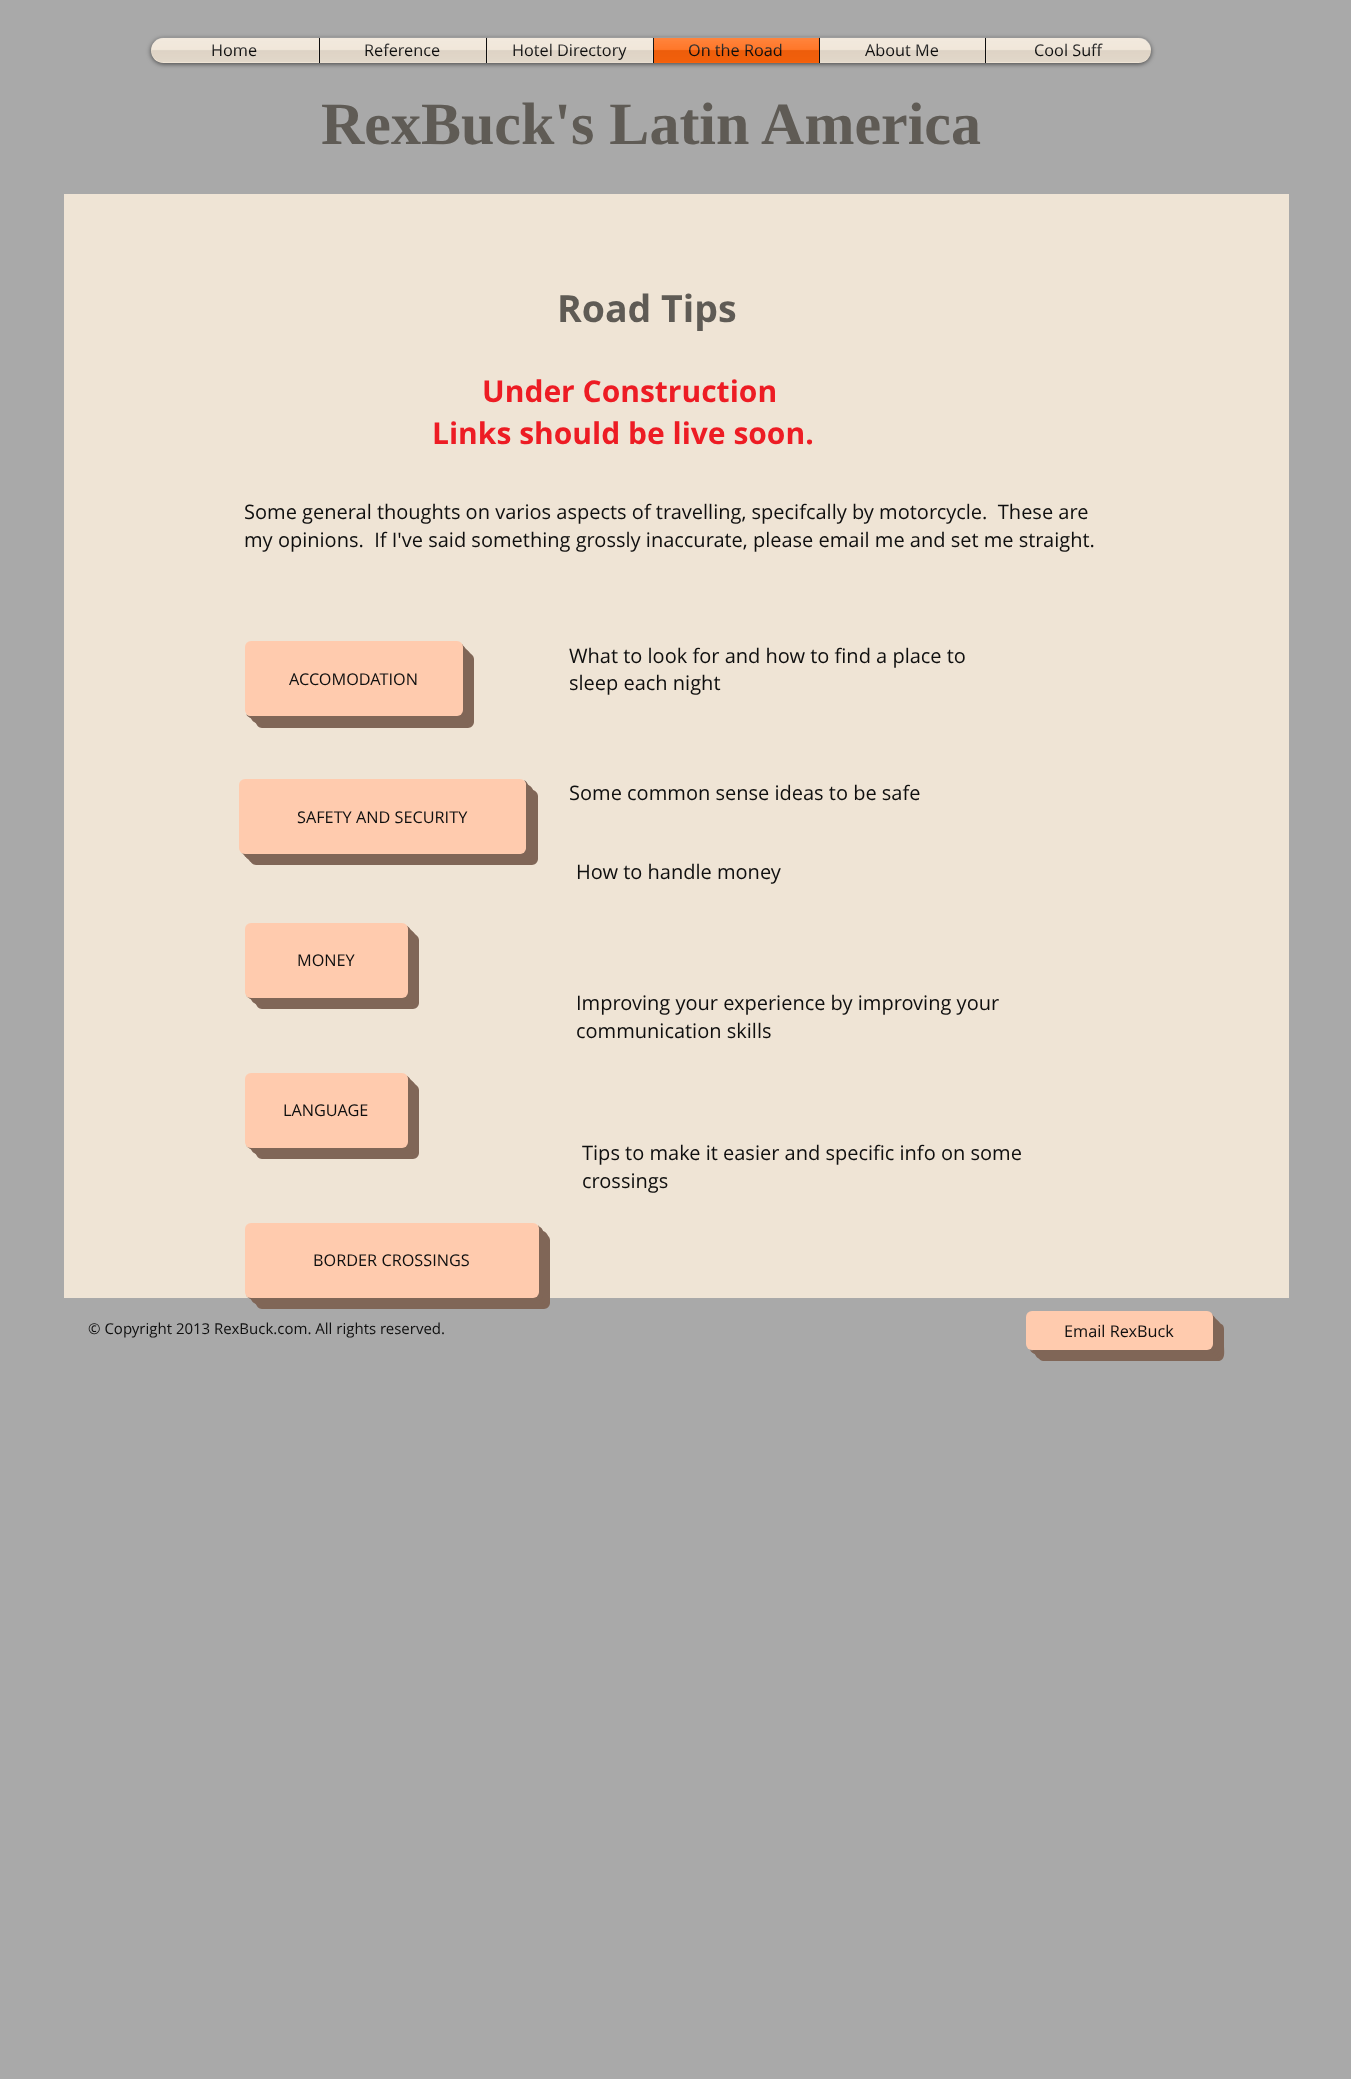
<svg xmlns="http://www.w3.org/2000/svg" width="1351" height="2079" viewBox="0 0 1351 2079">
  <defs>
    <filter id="blur1" x="-50%" y="-200%" width="200%" height="500%"><feGaussianBlur stdDeviation="2.5"/></filter>
  </defs>
  <rect width="100%" height="100%" fill="#a9a9a9"/>
  <rect x="151" y="39" width="1000" height="25" rx="12.5" fill="#000000" fill-opacity="0.6" filter="url(#blur1)"/>
  <image x="151" y="37" width="1000" height="25" href="img1.png"/>
  <path d="M163.5 38H319V63H163.5C156.5 63 151 57.5 151 50.5C151 43.5 156.5 38 163.5 38Z" fill="#efe4d5"/>
  <text x="211" y="56" font-family="Open Sans" font-size="16.25" fill="#0f0f0f">Home</text>
  <image x="151" y="37" width="168" height="25" href="img2.png"/>
  <rect x="320" y="38" width="166" height="25" fill="#efe4d5"/>
  <rect x="319" y="38" width="1" height="25" fill="#0f0f0f"/>
  <text x="364" y="56" font-family="Open Sans" font-size="16.25" fill="#0f0f0f">Reference</text>
  <image x="320" y="37" width="166" height="26" href="img3.png"/>
  <rect x="487" y="38" width="166" height="25" fill="#efe4d5"/>
  <rect x="486" y="38" width="1" height="25" fill="#0f0f0f"/>
  <text x="512" y="56" font-family="Open Sans" font-size="16.25" fill="#0f0f0f">Hotel Directory</text>
  <image x="487" y="37" width="166" height="26" href="img4.png"/>
  <rect x="654" y="38" width="165" height="25" fill="#ff650c"/>
  <rect x="653" y="38" width="1" height="25" fill="#0f0f0f"/>
  <text x="688" y="56" font-family="Open Sans" font-size="16.25" fill="#0f0f0f">On the Road</text>
  <image x="653" y="37" width="166" height="26" href="img5.png"/>
  <rect x="820" y="38" width="165" height="25" fill="#efe4d5"/>
  <rect x="819" y="38" width="1" height="25" fill="#0f0f0f"/>
  <text x="865" y="56" font-family="Open Sans" font-size="16.25" fill="#0f0f0f">About Me</text>
  <image x="820" y="37" width="165" height="26" href="img6.png"/>
  <path d="M985 38H1138.5C1145.5 38 1151 43.5 1151 50.5C1151 57.5 1145.5 63 1138.5 63H985Z" fill="#efe4d5"/>
  <rect x="985" y="38" width="1" height="25" fill="#0f0f0f"/>
  <text x="1034" y="56" font-family="Open Sans" font-size="16.25" fill="#0f0f0f">Cool Suff</text>
  <image x="986" y="37" width="165" height="25" href="img7.png"/>
  <text x="321" y="144" font-family="Liberation Serif" font-size="60" font-weight="bold" fill="#5f5b55">RexBuck's Latin America</text>
  <rect x="64" y="194" width="1225" height="1104" fill="#efe4d5"/>
  <text x="557" y="322" font-family="Open Sans" font-size="37.5" font-weight="bold" fill="#5f5b55">Road Tips</text>
  <text x="482" y="402" font-family="Open Sans" font-size="30" font-weight="bold" fill="#ed1c24">Under Construction</text>
  <text x="432" y="444" font-family="Open Sans" font-size="30" font-weight="bold" fill="#ed1c24">Links should be live soon.</text>
  <text x="244" y="519" font-family="Open Sans" font-size="20" fill="#0f0f0f" xml:space="preserve">Some general thoughts on varios aspects of travelling, specifcally by motorcycle.  These are</text>
  <text x="244" y="547" font-family="Open Sans" font-size="20" fill="#0f0f0f" xml:space="preserve">my opinions.  If I've said something grossly inaccurate, please email me and set me straight.</text>
  <path d="M256 716V722C256 725 259 728 262 728H468C471 728 474 725 474 722V659C474 656 471 653 468 653H462V710C462 713 460 716 456 716Z" fill="#806657"/>
  <path d="M254 716V719C254 722 257 725 260 725H465C468 725 471 722 471 719V656C471 653 468 650 465 650H462V710C462 713 460 716 456 716Z" fill="#806657"/>
  <path d="M251 716V717C251 720 254 723 257 723H463C466 723 469 720 469 717V654C469 651 466 648 463 648H462V700C462 704 465 716 456 716Z" fill="#806657"/>
  <path d="M249 716C250 718 252 720 255 720H460C463 720 466 717 466 714V651C466 648 464 646 462 645V700C462 704 465 716 456 716Z" fill="#806657"/>
  <path d="M246 714C247 716 249 718 252 718H458C461 718 464 715 464 712V649C464 647 463 645 462 644V648V710C462 713 460 716 456 716H251C249 716 247 715 246 714Z" fill="#806657"/>
  <rect x="245" y="641" width="218" height="75" rx="6" fill="#ffcbae"/>
  <text x="289" y="685" font-family="Open Sans" font-size="16.25" fill="#0f0f0f">ACCOMODATION</text>
  <text x="569" y="663" font-family="Open Sans" font-size="20" fill="#0f0f0f">What to look for and how to find a place to</text>
  <text x="569" y="690" font-family="Open Sans" font-size="20" fill="#0f0f0f">sleep each night</text>
  <text x="569" y="800" font-family="Open Sans" font-size="20" fill="#0f0f0f">Some common sense ideas to be safe</text>
  <path d="M250 854V859C250 862 253 865 256 865H532C535 865 538 862 538 859V796C538 793 535 790 532 790H526V848C526 851 523 854 520 854Z" fill="#806657"/>
  <path d="M248 854V857C248 860 251 863 254 863H529C532 863 535 860 535 857V794C535 791 532 788 529 788H526V848C526 851 523 854 520 854Z" fill="#806657"/>
  <path d="M245 854C245 857 248 860 251 860H527C530 860 533 857 533 854V791C533 788 530 785 527 785H526V848C526 851 523 854 520 854Z" fill="#806657"/>
  <path d="M243 853C244 856 246 858 249 858H524C527 858 530 855 530 852V789C530 786 528 784 526 783V837C526 842 528 854 520 854Z" fill="#806657"/>
  <path d="M241 852C242 854 244 855 246 855H522C525 855 528 852 528 849V786C528 783 526 781 524 780C525 782 526 783 526 785V848C526 851 523 854 520 854H245C243 854 242 853 241 852Z" fill="#806657"/>
  <rect x="239" y="779" width="287" height="75" rx="6" fill="#ffcbae"/>
  <text x="297" y="823" font-family="Open Sans" font-size="16.25" fill="#0f0f0f">SAFETY AND SECURITY</text>
  <text x="576" y="879" font-family="Open Sans" font-size="20" fill="#0f0f0f">How to handle money</text>
  <path d="M256 998V1003C256 1006 259 1009 262 1009H413C416 1009 419 1006 419 1003V940C419 937 416 934 413 934H408V991C408 995 405 998 401 998Z" fill="#806657"/>
  <path d="M254 998V1000C254 1003 257 1006 260 1006H410C413 1006 416 1003 416 1000V937C416 934 413 931 410 931H408V991C408 995 405 998 401 998Z" fill="#806657"/>
  <path d="M251 997V998C251 1001 254 1004 257 1004H408C411 1004 414 1001 414 998V935C414 932 411 929 408 929L407 993C405 1002 385 998 376 998Z" fill="#806657"/>
  <path d="M249 997C250 999 252 1001 255 1001H405C408 1001 411 998 411 995V932C411 929 409 927 407 926C408 930 408 938 408 939V970C408 1003 412 998 376 998Z" fill="#806657"/>
  <path d="M246 995C247 997 249 999 252 999H403C406 999 409 996 409 993V930C409 928 408 926 406 925C407 926 408 927 408 929V991C408 995 405 998 401 998H251C249 998 248 997 246 995Z" fill="#806657"/>
  <rect x="245" y="923" width="163" height="75" rx="6" fill="#ffcbae"/>
  <text x="297" y="966" font-family="Open Sans" font-size="16.25" fill="#0f0f0f">MONEY</text>
  <text x="576" y="1010" font-family="Open Sans" font-size="20" fill="#0f0f0f">Improving your experience by improving your</text>
  <text x="576" y="1038" font-family="Open Sans" font-size="20" fill="#0f0f0f">communication skills</text>
  <path d="M256 1148V1153C256 1156 259 1159 262 1159H413C416 1159 419 1156 419 1153V1090C419 1087 416 1084 413 1084H408V1141C408 1145 405 1148 401 1148Z" fill="#806657"/>
  <path d="M254 1148V1150C254 1153 257 1156 260 1156H410C413 1156 416 1153 416 1150V1087C416 1084 413 1081 410 1081H408V1141C408 1145 405 1148 401 1148Z" fill="#806657"/>
  <path d="M251 1147V1148C251 1151 254 1154 257 1154H408C411 1154 414 1151 414 1148V1085C414 1082 411 1079 408 1079L407 1143C405 1152 385 1148 376 1148Z" fill="#806657"/>
  <path d="M249 1147C250 1149 252 1151 255 1151H405C408 1151 411 1148 411 1145V1082C411 1079 409 1077 407 1076C408 1080 408 1088 408 1089V1120C408 1153 412 1148 376 1148Z" fill="#806657"/>
  <path d="M246 1145C247 1147 249 1149 252 1149H403C406 1149 409 1146 409 1143V1080C409 1078 408 1076 406 1075C407 1076 408 1077 408 1079V1141C408 1145 405 1148 401 1148H251C249 1148 248 1147 246 1145Z" fill="#806657"/>
  <rect x="245" y="1073" width="163" height="75" rx="6" fill="#ffcbae"/>
  <text x="283" y="1116" font-family="Open Sans" font-size="16.25" fill="#0f0f0f">LANGUAGE</text>
  <text x="582" y="1160" font-family="Open Sans" font-size="20" fill="#0f0f0f">Tips to make it easier and specific info on some</text>
  <text x="582" y="1188" font-family="Open Sans" font-size="20" fill="#0f0f0f">crossings</text>
  <path d="M256 1298V1303C256 1306 259 1309 262 1309H544C547 1309 550 1306 550 1303V1240C550 1237 547 1234 544 1234H539V1291C539 1295 536 1298 532 1298Z" fill="#806657"/>
  <path d="M254 1298V1300C254 1303 257 1306 260 1306H542C545 1306 548 1303 548 1300V1237C548 1234 545 1231 542 1231H539V1291C539 1295 536 1298 532 1298Z" fill="#806657"/>
  <path d="M251 1297V1298C251 1301 254 1304 257 1304H539C542 1304 545 1301 545 1298V1235C545 1232 542 1229 539 1229V1281C539 1286 541 1297 532 1298Z" fill="#806657"/>
  <path d="M249 1297C250 1299 252 1301 255 1301H537C540 1301 543 1298 543 1295V1232C543 1229 541 1227 538 1226L539 1229V1291C539 1295 536 1298 532 1298Z" fill="#806657"/>
  <path d="M246 1295C247 1297 249 1299 252 1299H534C537 1299 540 1296 540 1293V1230C540 1228 539 1226 538 1225C538 1226 539 1227 539 1229V1291C539 1295 536 1298 532 1298H251C249 1298 248 1297 246 1295Z" fill="#806657"/>
  <rect x="245" y="1223" width="294" height="75" rx="6" fill="#ffcbae"/>
  <text x="313" y="1266" font-family="Open Sans" font-size="16.25" fill="#0f0f0f">BORDER CROSSINGS</text>
  <text x="88" y="1334" font-family="Open Sans" font-size="15" fill="#0f0f0f">© Copyright 2013 RexBuck.com. All rights reserved.</text>
  <path d="M1038 1350C1038 1354 1037 1360 1043 1361H1218C1226 1361 1224 1351 1224 1346V1329C1224 1322 1217 1323 1212 1323V1344C1212 1347 1210 1350 1206 1350Z" fill="#806657"/>
  <path d="M1035 1350V1353C1035 1356 1038 1359 1041 1359H1215C1218 1359 1221 1356 1221 1353V1326C1221 1323 1218 1320 1215 1320H1212V1344C1212 1347 1210 1350 1206 1350Z" fill="#806657"/>
  <path d="M1033 1350C1033 1353 1036 1356 1039 1356H1213C1216 1356 1219 1353 1219 1350V1324C1219 1321 1216 1318 1213 1318H1212V1344C1212 1347 1210 1350 1206 1350Z" fill="#806657"/>
  <path d="M1030 1350C1031 1352 1033 1354 1036 1354H1210C1213 1354 1216 1351 1216 1348V1321C1216 1318 1214 1316 1212 1315V1335C1212 1340 1214 1350 1206 1350H1061C1051 1350 1040 1353 1030 1350Z" fill="#806657"/>
  <path d="M1030 1349C1031 1350 1032 1351 1034 1351H1208C1211 1351 1214 1348 1214 1345V1319C1214 1317 1213 1315 1212 1314V1318V1344C1212 1347 1210 1350 1206 1350H1032Z" fill="#806657"/>
  <rect x="1026" y="1311" width="187" height="39" rx="6" fill="#ffcbae"/>
  <text x="1064" y="1337" font-family="Open Sans" font-size="16.25" fill="#0f0f0f">Email RexBuck</text>
</svg>
